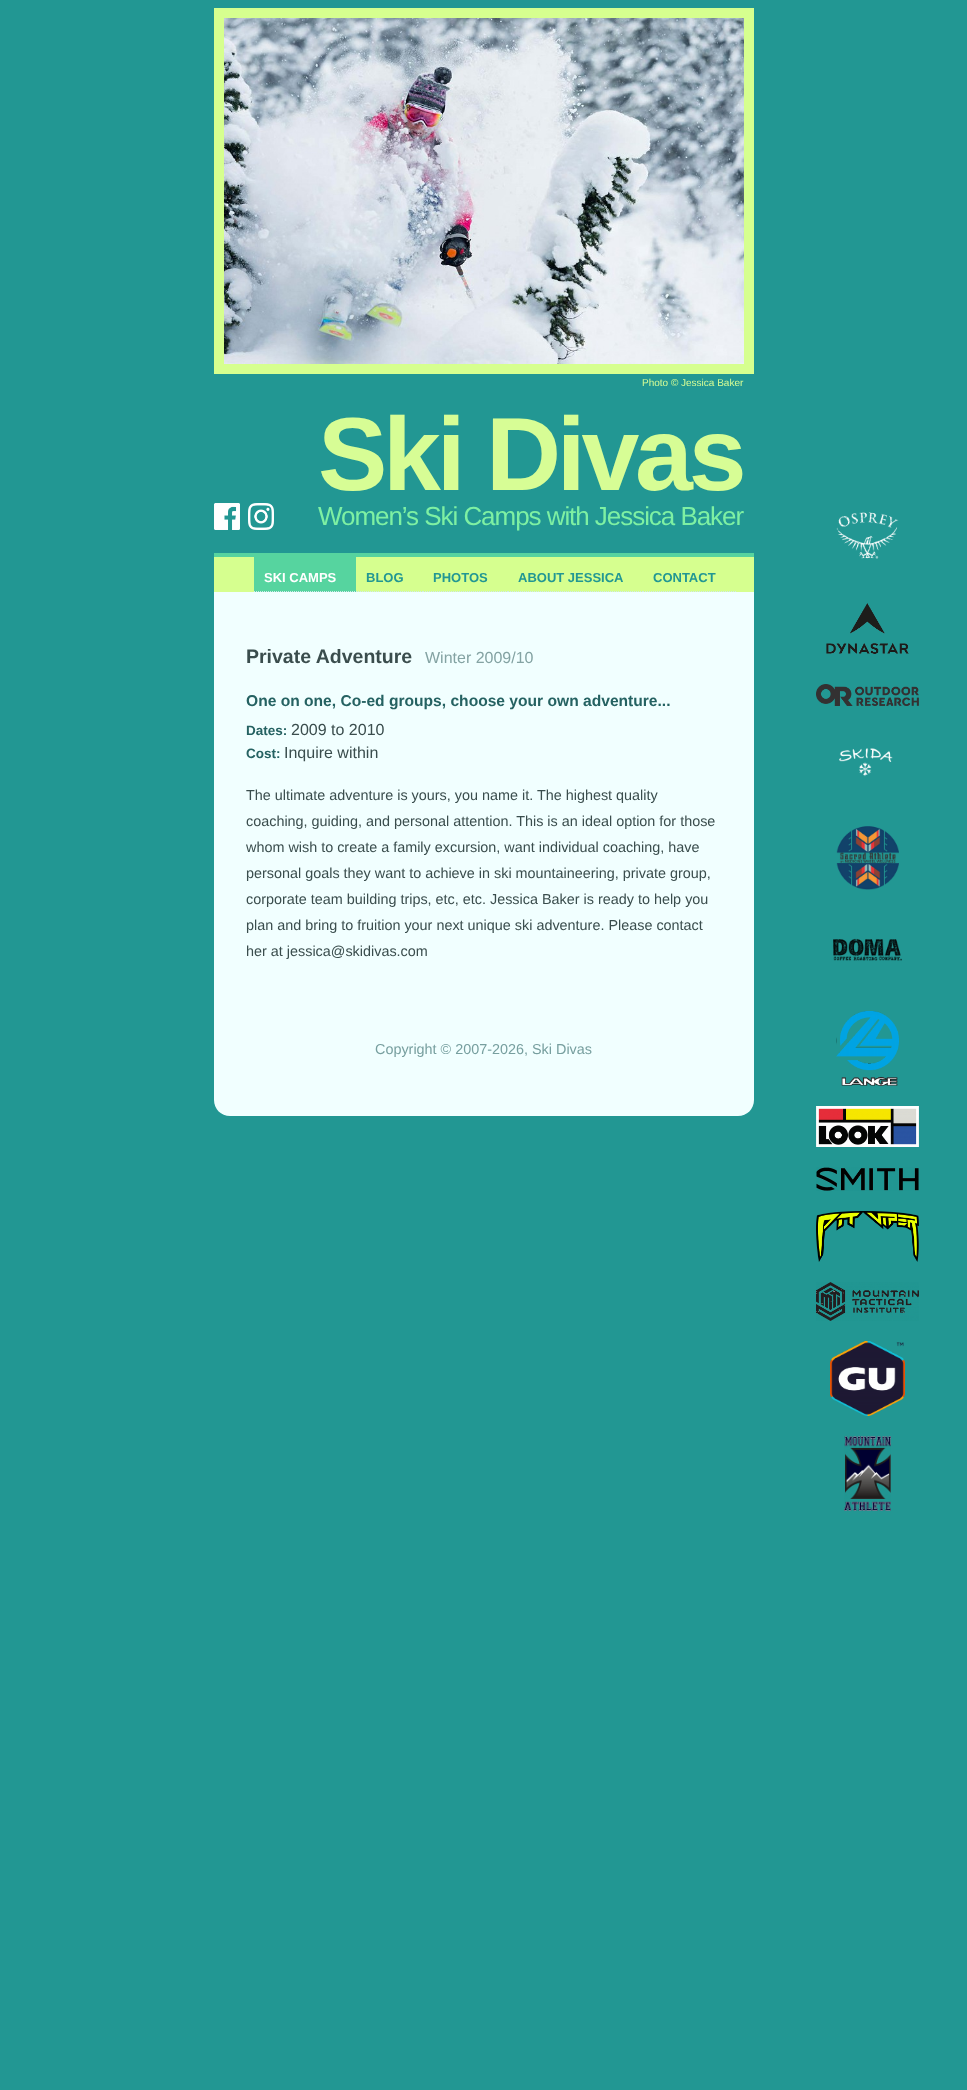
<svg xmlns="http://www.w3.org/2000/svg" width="967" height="2090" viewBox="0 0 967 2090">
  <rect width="100%" height="100%" fill="#229793"/>
  <rect x="219" y="13" width="530" height="356" fill="none" stroke="#d6ff8f" stroke-width="10"/>
  <image x="224" y="18" width="520" height="346" href="img1.png"/>
  <text x="642" y="386" font-family="Liberation Sans" font-size="10" fill="#d7fd95">Photo © Jessica Baker</text>
  <text x="318" y="490" font-family="Liberation Sans" font-size="104" font-weight="bold" letter-spacing="-4.25" fill="#d7fd95">Ski Divas</text>
  <image x="214" y="503" width="26" height="27" href="img2.png"/>
  <image x="248" y="503" width="26" height="27" href="img3.png"/>
  <text x="318" y="525" font-family="Liberation Sans" font-size="26" letter-spacing="-1.05" fill="#7ef0a3">Women’s Ski Camps with Jessica Baker</text>
  <rect x="214" y="557" width="540" height="35" fill="#d6ff8f"/>
  <rect x="214" y="553" width="540" height="4" fill="#56d49f"/>
  <rect x="254" y="557" width="102" height="35" fill="#56d49f"/>
  <path d="M254 591.5H356" fill="none" stroke="#ceebeb" stroke-dasharray="1 1"/>
  <text x="264" y="582" font-family="Liberation Sans" font-size="13" font-weight="bold" fill="#ffffff">SKI CAMPS</text>
  <path d="M356 591.5H423" fill="none" stroke="#ceebeb" stroke-dasharray="1 1"/>
  <text x="366" y="582" font-family="Liberation Sans" font-size="13" font-weight="bold" fill="#229793">BLOG</text>
  <path d="M423 591.5H508" fill="none" stroke="#ceebeb" stroke-dasharray="1 1"/>
  <text x="433" y="582" font-family="Liberation Sans" font-size="13" font-weight="bold" fill="#229793">PHOTOS</text>
  <path d="M508 591.5H643" fill="none" stroke="#ceebeb" stroke-dasharray="1 1"/>
  <text x="518" y="582" font-family="Liberation Sans" font-size="13" font-weight="bold" fill="#229793">ABOUT JESSICA</text>
  <path d="M643 591.5H736" fill="none" stroke="#ceebeb" stroke-dasharray="1 1"/>
  <text x="653" y="582" font-family="Liberation Sans" font-size="13" font-weight="bold" fill="#229793">CONTACT</text>
  <image x="836" y="512" width="63" height="47" href="img4.png"/>
  <image x="826" y="603" width="83" height="51" href="img5.png"/>
  <image x="816" y="684" width="103" height="22" href="img6.png"/>
  <image x="839" y="748" width="54" height="29" href="img7.png"/>
  <image x="836" y="826" width="63" height="64" href="img8.png"/>
  <image x="833" y="938" width="69" height="23" href="img9.png"/>
  <image x="836" y="1011" width="63" height="75" href="img10.png"/>
  <image x="816" y="1106" width="103" height="41" href="img11.png"/>
  <image x="816" y="1167" width="103" height="24" href="img12.png"/>
  <image x="816" y="1211" width="103" height="51" href="img13.png"/>
  <image x="816" y="1282" width="103" height="39" href="img14.png"/>
  <image x="830" y="1341" width="75" height="75" href="img15.png"/>
  <image x="844" y="1436" width="47" height="75" href="img16.png"/>
  <path d="M214 592H754V1100C754 1109 747 1116 738 1116H230C221 1116 214 1109 214 1100Z" fill="#f1ffff"/>
  <text x="246" y="663" font-family="Liberation Sans" font-size="19.5" font-weight="bold" fill="#3a4d4d">Private Adventure</text>
  <text x="425" y="663" font-family="Liberation Sans" font-size="16" fill="#84a3a3">Winter 2009/10</text>
  <text x="246" y="706" font-family="Liberation Sans" font-size="15.6" font-weight="bold" fill="#256262">One on one, Co-ed groups, choose your own adventure...</text>
  <text x="246" y="735" font-family="Liberation Sans" font-size="13.5" font-weight="bold" fill="#256262">Dates:</text>
  <text x="291" y="735" font-family="Liberation Sans" font-size="16" fill="#3a4d4d">2009 to 2010</text>
  <text x="246" y="758" font-family="Liberation Sans" font-size="13.5" font-weight="bold" fill="#256262">Cost:</text>
  <text x="284" y="758" font-family="Liberation Sans" font-size="16" fill="#3a4d4d">Inquire within</text>
  <text x="246" y="800" font-family="Liberation Sans" font-size="14.4" fill="#3a4d4d">The ultimate adventure is yours, you name it. The highest quality</text>
  <text x="246" y="826" font-family="Liberation Sans" font-size="14.4" fill="#3a4d4d">coaching, guiding, and personal attention. This is an ideal option for those</text>
  <text x="246" y="852" font-family="Liberation Sans" font-size="14.4" fill="#3a4d4d">whom wish to create a family excursion, want individual coaching, have</text>
  <text x="246" y="878" font-family="Liberation Sans" font-size="14.4" fill="#3a4d4d">personal goals they want to achieve in ski mountaineering, private group,</text>
  <text x="246" y="904" font-family="Liberation Sans" font-size="14.4" fill="#3a4d4d">corporate team building trips, etc, etc. Jessica Baker is ready to help you</text>
  <text x="246" y="930" font-family="Liberation Sans" font-size="14.4" fill="#3a4d4d">plan and bring to fruition your next unique ski adventure. Please contact</text>
  <text x="246" y="956" font-family="Liberation Sans" font-size="14.4" fill="#3a4d4d">her at jessica@skidivas.com</text>
  <text x="375" y="1054" font-family="Liberation Sans" font-size="14.4" fill="#779f9f">Copyright © 2007-2026, Ski Divas</text>
</svg>
